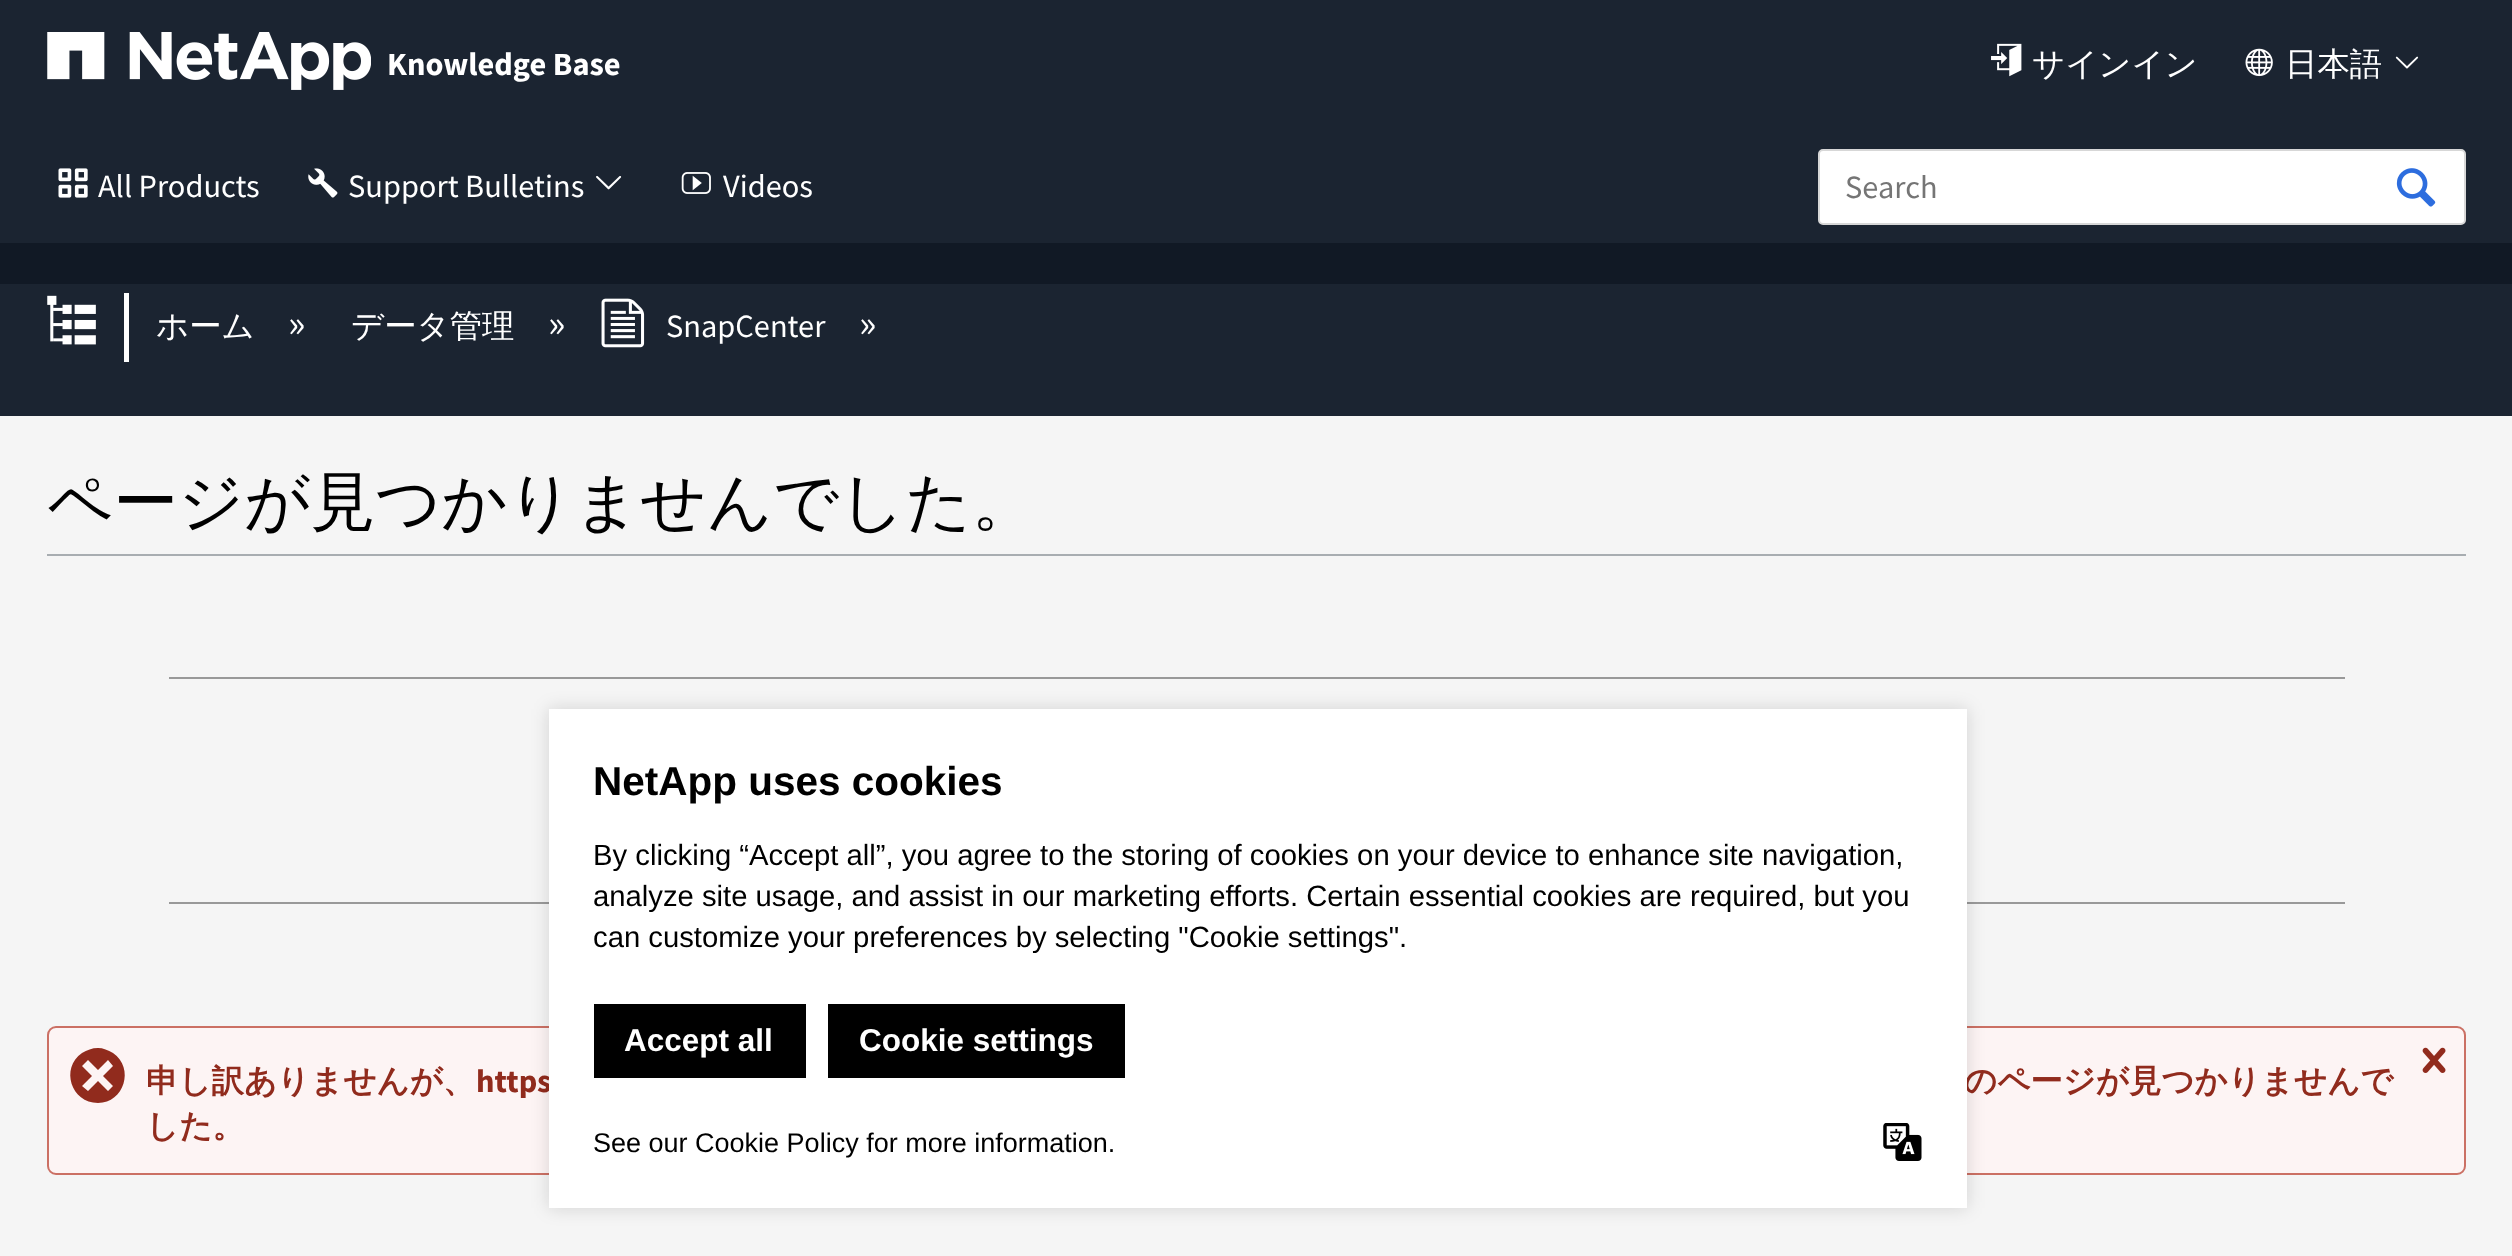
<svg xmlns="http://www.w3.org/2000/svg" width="2512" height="1256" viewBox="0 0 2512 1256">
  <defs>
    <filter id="blur1" x="-50%" y="-200%" width="200%" height="500%"><feGaussianBlur stdDeviation="9"/></filter>
  </defs>
  <rect width="100%" height="100%" fill="#f5f5f5"/>
  <rect x="0" y="243" width="2512" height="41" fill="#111925"/>
  <rect x="0" y="0" width="2512" height="243" fill="#1b2431"/>
  <image x="47" y="32" width="324" height="58" href="img1.png"/>
  <text x="387" y="75" font-family="Source Sans Pro" font-size="32.4" font-weight="bold" fill="#ffffff">Knowledge Base</text>
  <image x="1991" y="43" width="31" height="34" href="img2.png"/>
  <text x="2032" y="75" font-family="WenQuanYi Zen Hei" font-size="32.4" font-weight="500" fill="#ffffff">サインイン</text>
  <image x="2245" y="48" width="28" height="29" href="img3.png"/>
  <text x="2285" y="75" font-family="WenQuanYi Zen Hei" font-size="32.4" font-weight="500" fill="#ffffff">日本語</text>
  <image x="2395" y="56" width="24" height="13" href="img4.png"/>
  <image x="58" y="168" width="30" height="30" href="img5.png"/>
  <text x="98" y="197" font-family="Source Sans Pro" font-size="32.4" fill="#ffffff">All Products</text>
  <image x="308" y="168" width="30" height="30" href="img6.png"/>
  <text x="348" y="197" font-family="Source Sans Pro" font-size="32.4" fill="#ffffff">Support Bulletins</text>
  <image x="596" y="176" width="26" height="14" href="img7.png"/>
  <image x="681" y="172" width="30" height="22" href="img8.png"/>
  <text x="723" y="197" font-family="Source Sans Pro" font-size="32.4" fill="#ffffff">Videos</text>
  <rect x="1819" y="150" width="646" height="74" rx="4" fill="#ffffff" stroke="#d7d7d7" stroke-width="2"/>
  <text x="1845" y="198" font-family="Source Sans Pro" font-size="32.4" fill="#757575">Search</text>
  <image x="2396" y="168" width="40" height="39" href="img9.png"/>
  <rect x="0" y="284" width="2512" height="132" fill="#1b2431"/>
  <image x="47" y="295" width="49" height="50" href="img10.png"/>
  <rect x="124" y="293" width="5" height="69" fill="#ffffff"/>
  <text x="156" y="337" font-family="WenQuanYi Zen Hei" font-size="32.4" font-weight="500" fill="#ffffff">ホーム</text>
  <text x="288" y="337" font-family="Source Sans Pro" font-size="40.5" fill="#ffffff">»</text>
  <text x="351" y="337" font-family="WenQuanYi Zen Hei" font-size="32.4" font-weight="500" fill="#ffffff">データ管理</text>
  <text x="548" y="337" font-family="Source Sans Pro" font-size="40.5" fill="#ffffff">»</text>
  <image x="601" y="298" width="44" height="50" href="img11.png"/>
  <text x="666" y="337" font-family="Source Sans Pro" font-size="32.4" fill="#ffffff">SnapCenter</text>
  <text x="859" y="337" font-family="Source Sans Pro" font-size="40.5" fill="#ffffff">»</text>
  <rect x="47" y="554" width="2419" height="2" fill="#a8adb1"/>
  <text x="47" y="524" font-family="WenQuanYi Zen Hei" font-size="64.75" font-weight="500" fill="#000000">ページが見つかりませんでした。</text>
  <rect x="169" y="677" width="2176" height="2" fill="#999999"/>
  <rect x="169" y="902" width="2176" height="2" fill="#999999"/>
  <rect x="48" y="1027" width="2417" height="147" rx="8" fill="#fdf4f4" stroke="#cb7064" stroke-width="2"/>
  <image x="2422" y="1047" width="24" height="26" href="img12.png"/>
  <path d="M98 1048C92 1048 87 1050 82 1053C60 1068 71 1103 98 1103C124 1103 135 1068 113 1053C108 1050 103 1048 98 1048ZM103 1076L113 1086L108 1091L98 1081L88 1091L82 1086L92 1076L82 1066L88 1060L98 1070L108 1060L113 1066Z" fill="#912b1d"/>
  <text x="146" y="1092" font-family="WenQuanYi Zen Hei" font-size="32.4" font-weight="bold" fill="#912b1d">申し訳ありませんが、</text>
  <text x="476" y="1092" font-family="Source Sans Pro" font-size="32.4" font-weight="bold" fill="#912b1d">https</text>
  <text x="1964" y="1092" font-family="WenQuanYi Zen Hei" font-size="32.4" font-weight="bold" fill="#912b1d">のページが見つかりませんで</text>
  <text x="146" y="1137" font-family="WenQuanYi Zen Hei" font-size="32.4" font-weight="bold" fill="#912b1d">した。</text>
  <rect x="549" y="709" width="1418" height="499" fill="#000000" fill-opacity="0.15" filter="url(#blur1)"/>
  <rect x="549" y="709" width="1418" height="499" fill="#ffffff"/>
  <text x="593" y="795" font-family="Liberation Sans" font-size="40.5" font-weight="bold" fill="#000000">NetApp uses cookies</text>
  <text x="593" y="865" font-family="Liberation Sans" font-size="29.25" fill="#000000">By clicking “Accept all”, you agree to the storing of cookies on your device to enhance site navigation,</text>
  <text x="593" y="906" font-family="Liberation Sans" font-size="29.25" fill="#000000">analyze site usage, and assist in our marketing efforts. Certain essential cookies are required, but you</text>
  <text x="593" y="947" font-family="Liberation Sans" font-size="29.25" fill="#000000">can customize your preferences by selecting "Cookie settings".</text>
  <rect x="594" y="1004" width="212" height="74" fill="#000000"/>
  <text x="624" y="1051" font-family="Liberation Sans" font-size="31.5" font-weight="bold" fill="#ffffff">Accept all</text>
  <rect x="828" y="1004" width="297" height="74" fill="#000000"/>
  <text x="859" y="1051" font-family="Liberation Sans" font-size="31.5" font-weight="bold" fill="#ffffff">Cookie settings</text>
  <text x="593" y="1152" font-family="Liberation Sans" font-size="27" fill="#000000">See our Cookie Policy for more information.</text>
  <image x="1883" y="1123" width="39" height="38" href="img13.png"/>
</svg>
